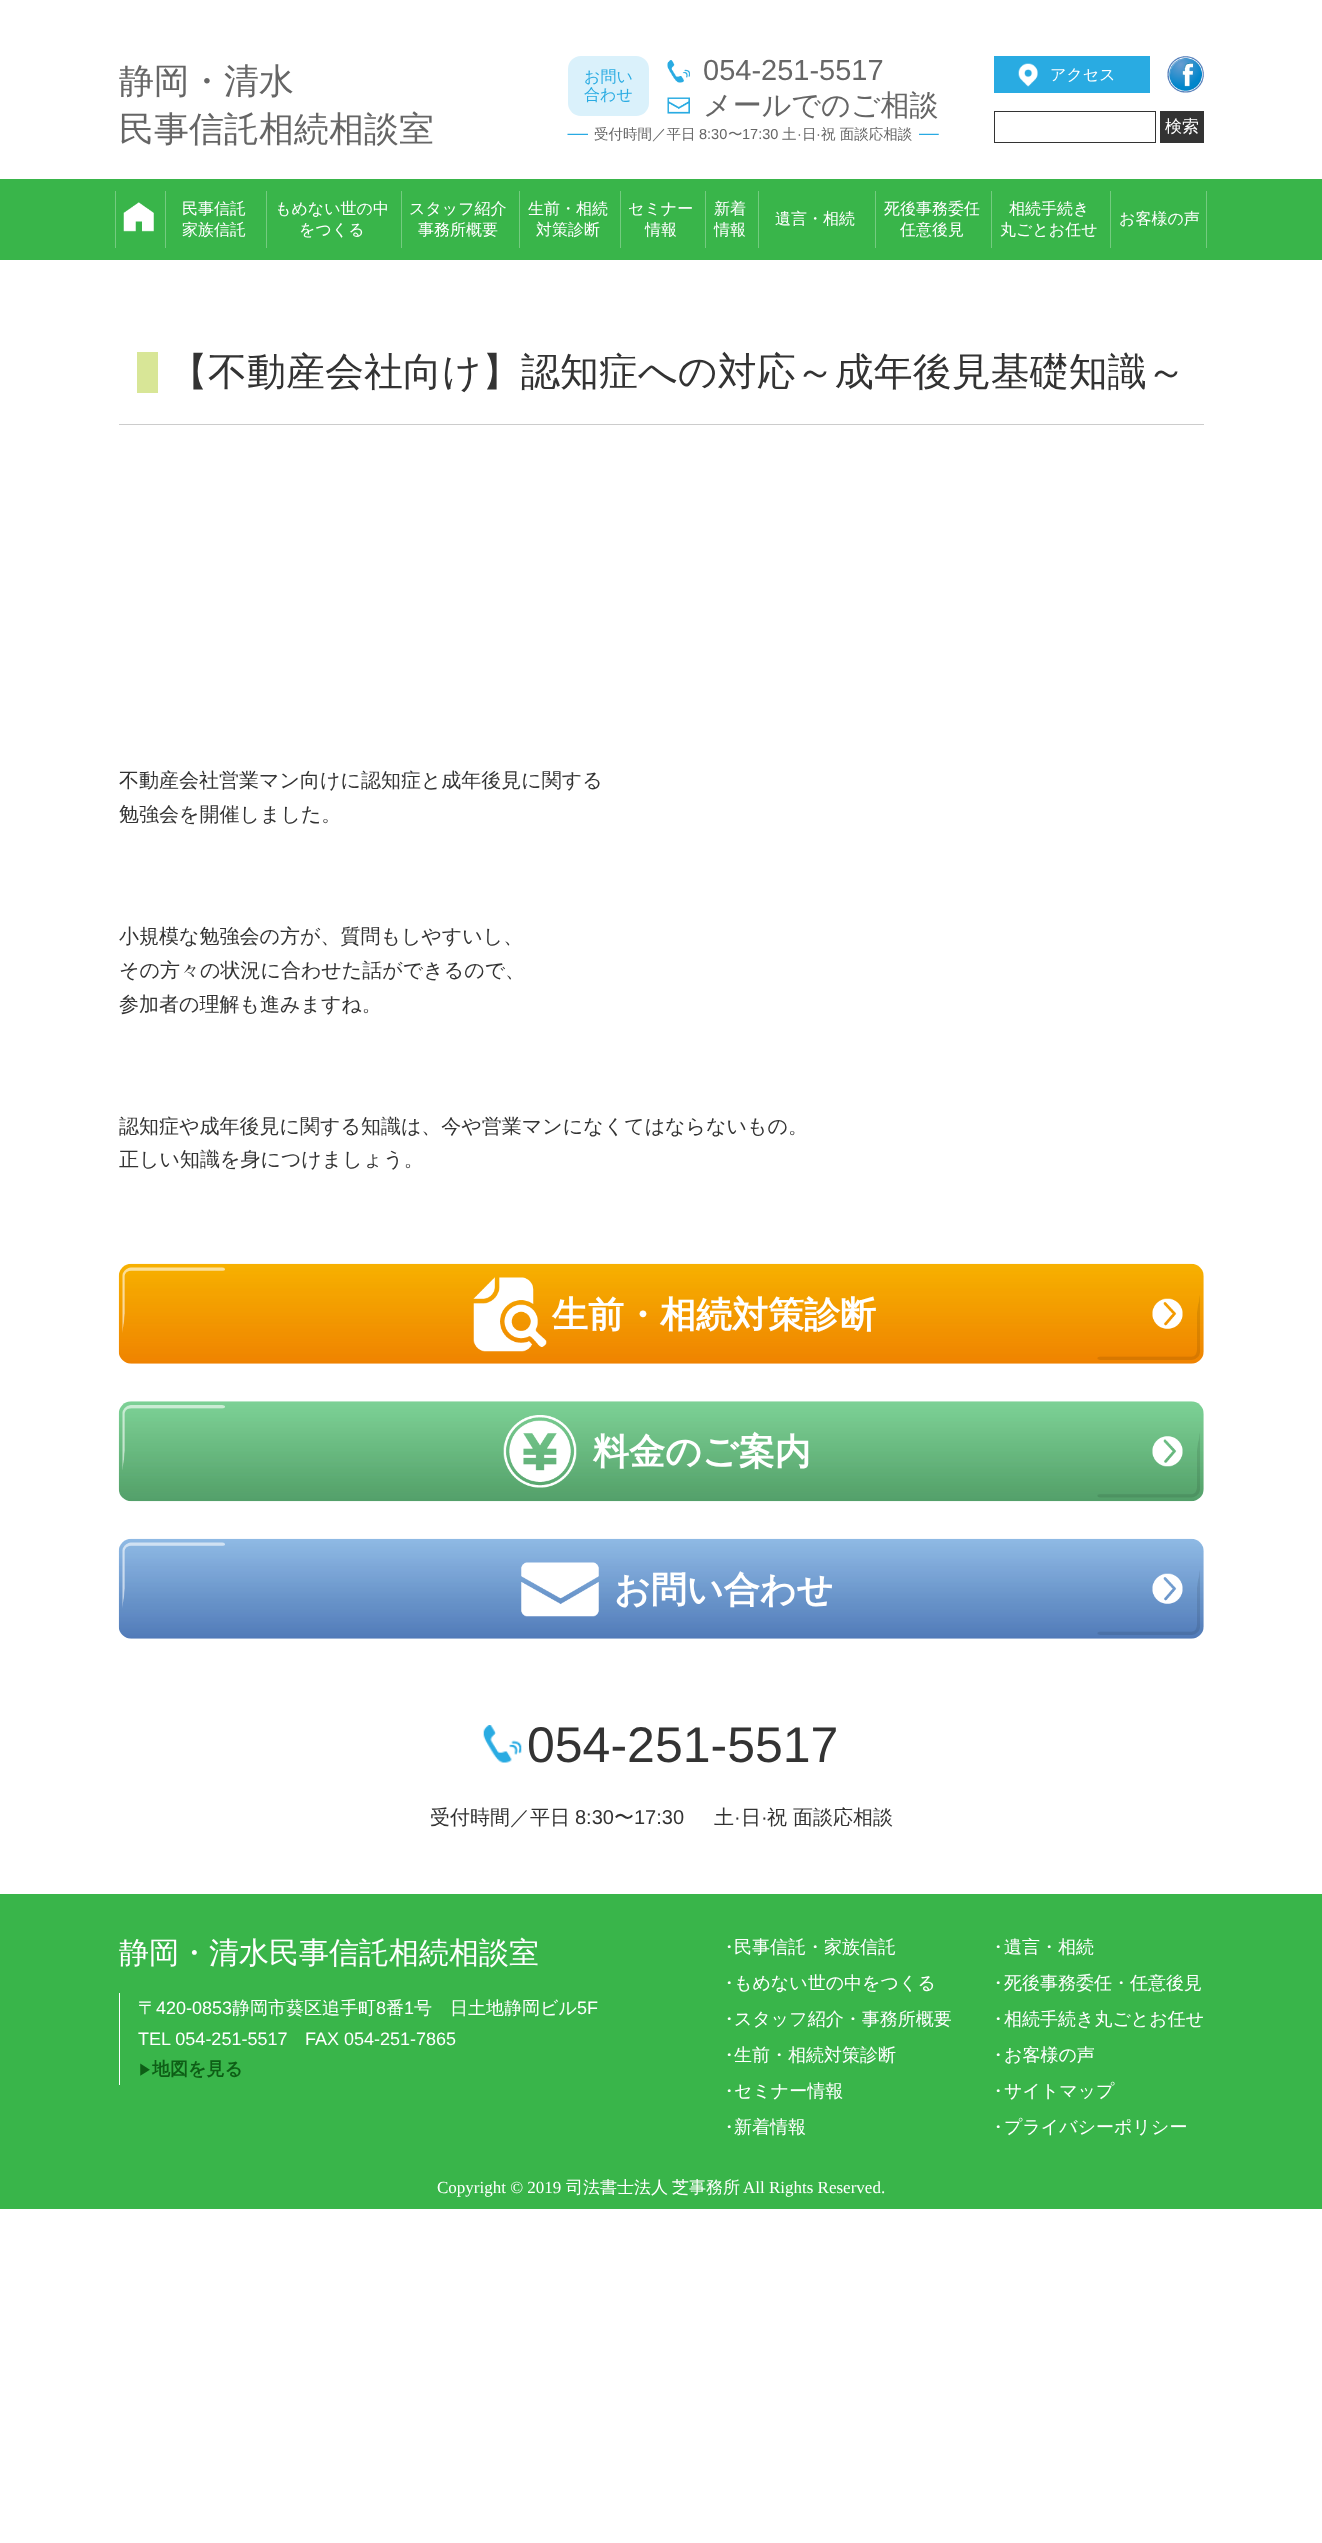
<svg xmlns="http://www.w3.org/2000/svg" width="1322" height="2543" viewBox="0 0 1322 2543">
  <rect width="100%" height="100%" fill="#ffffff"/>
  <text x="119" y="93" font-family="WenQuanYi Zen Hei" font-size="35" font-weight="500" fill="#666666">静岡・清水</text>
  <text x="119" y="141" font-family="WenQuanYi Zen Hei" font-size="35" font-weight="500" fill="#666666">民事信託相続相談室</text>
  <rect x="568" y="56" width="81" height="60" rx="13" fill="#daf1fb"/>
  <text x="584" y="82" font-family="WenQuanYi Zen Hei" font-size="16" font-weight="500" fill="#29abe2">お問い</text>
  <text x="584" y="100" font-family="WenQuanYi Zen Hei" font-size="16" font-weight="500" fill="#29abe2">合わせ</text>
  <image x="667" y="60" width="23" height="23" href="img1.png"/>
  <text x="703" y="80" font-family="Liberation Sans" font-size="29" fill="#666666">054-251-5517</text>
  <image x="667" y="97" width="23" height="17" href="img2.png"/>
  <text x="703" y="115" font-family="WenQuanYi Zen Hei" font-size="29" font-weight="500" fill="#666666">メールでのご相談</text>
  <image x="567" y="133" width="372" height="2" href="img3.png"/>
  <rect x="588" y="133" width="331" height="2" fill="#ffffff"/>
  <text x="594" y="139" font-family="WenQuanYi Zen Hei" font-size="14.5" font-weight="500" fill="#666666">受付時間／平日</text>
  <text x="699" y="139" font-family="Liberation Sans" font-size="14.5" fill="#666666">8:30</text>
  <text x="728" y="139" font-family="WenQuanYi Zen Hei" font-size="14.5" font-weight="500" fill="#666666">〜</text>
  <text x="742" y="139" font-family="Liberation Sans" font-size="14.5" fill="#666666">17:30</text>
  <text x="782" y="139" font-family="WenQuanYi Zen Hei" font-size="14.5" font-weight="500" fill="#666666">土</text>
  <text x="797" y="139" font-family="Liberation Sans" font-size="14.5" fill="#666666">·</text>
  <text x="802" y="139" font-family="WenQuanYi Zen Hei" font-size="14.5" font-weight="500" fill="#666666">日</text>
  <text x="816" y="139" font-family="Liberation Sans" font-size="14.5" fill="#666666">·</text>
  <text x="821" y="139" font-family="WenQuanYi Zen Hei" font-size="14.5" font-weight="500" fill="#666666">祝 面談応相談</text>
  <rect x="994" y="56" width="156" height="37" fill="#29abe2"/>
  <image x="1018" y="63" width="20" height="24" href="img4.png"/>
  <text x="1050" y="80" font-family="WenQuanYi Zen Hei" font-size="16" font-weight="500" fill="#ffffff">アクセス</text>
  <image x="1167" y="56" width="37" height="37" href="img5.png"/>
  <rect x="994.5" y="111.5" width="161" height="31" fill="none" stroke="#333333"/>
  <rect x="1160" y="111" width="44" height="32" fill="#333333"/>
  <text x="1165" y="132" font-family="WenQuanYi Zen Hei" font-size="17" font-weight="500" fill="#ffffff">検索</text>
  <rect x="0" y="179" width="1322" height="81" fill="#39b54a"/>
  <rect x="115" y="191" width="1" height="57" fill="#74cb80"/>
  <image x="123" y="202" width="31" height="30" href="img6.png"/>
  <rect x="165" y="191" width="1" height="57" fill="#74cb80"/>
  <text x="182" y="214" font-family="WenQuanYi Zen Hei" font-size="16" font-weight="500" fill="#ffffff">民事信託</text>
  <text x="182" y="235" font-family="WenQuanYi Zen Hei" font-size="16" font-weight="500" fill="#ffffff">家族信託</text>
  <rect x="266" y="191" width="1" height="57" fill="#74cb80"/>
  <text x="275" y="214" font-family="WenQuanYi Zen Hei" font-size="16" font-weight="500" fill="#ffffff">もめない世の中</text>
  <text x="299" y="235" font-family="WenQuanYi Zen Hei" font-size="16" font-weight="500" fill="#ffffff">をつくる</text>
  <rect x="401" y="191" width="1" height="57" fill="#74cb80"/>
  <text x="409" y="214" font-family="WenQuanYi Zen Hei" font-size="16" font-weight="500" fill="#ffffff">スタッフ紹介</text>
  <text x="418" y="235" font-family="WenQuanYi Zen Hei" font-size="16" font-weight="500" fill="#ffffff">事務所概要</text>
  <rect x="519" y="191" width="1" height="57" fill="#74cb80"/>
  <text x="528" y="214" font-family="WenQuanYi Zen Hei" font-size="16" font-weight="500" fill="#ffffff">生前・相続</text>
  <text x="536" y="235" font-family="WenQuanYi Zen Hei" font-size="16" font-weight="500" fill="#ffffff">対策診断</text>
  <rect x="620" y="191" width="1" height="57" fill="#74cb80"/>
  <text x="628" y="214" font-family="WenQuanYi Zen Hei" font-size="16" font-weight="500" fill="#ffffff">セミナー</text>
  <text x="645" y="235" font-family="WenQuanYi Zen Hei" font-size="16" font-weight="500" fill="#ffffff">情報</text>
  <rect x="705" y="191" width="1" height="57" fill="#74cb80"/>
  <text x="714" y="214" font-family="WenQuanYi Zen Hei" font-size="16" font-weight="500" fill="#ffffff">新着</text>
  <text x="714" y="235" font-family="WenQuanYi Zen Hei" font-size="16" font-weight="500" fill="#ffffff">情報</text>
  <rect x="758" y="191" width="1" height="57" fill="#74cb80"/>
  <text x="775" y="224" font-family="WenQuanYi Zen Hei" font-size="16" font-weight="500" fill="#ffffff">遺言・相続</text>
  <rect x="875" y="191" width="1" height="57" fill="#74cb80"/>
  <text x="884" y="214" font-family="WenQuanYi Zen Hei" font-size="16" font-weight="500" fill="#ffffff">死後事務委任</text>
  <text x="900" y="235" font-family="WenQuanYi Zen Hei" font-size="16" font-weight="500" fill="#ffffff">任意後見</text>
  <rect x="991" y="191" width="1" height="57" fill="#74cb80"/>
  <text x="1009" y="214" font-family="WenQuanYi Zen Hei" font-size="16" font-weight="500" fill="#ffffff">相続手続き</text>
  <text x="1000" y="235" font-family="WenQuanYi Zen Hei" font-size="16" font-weight="500" fill="#ffffff">丸ごとお任せ</text>
  <rect x="1206" y="191" width="1" height="57" fill="#74cb80"/>
  <rect x="1110" y="191" width="1" height="57" fill="#74cb80"/>
  <text x="1119" y="224" font-family="WenQuanYi Zen Hei" font-size="16" font-weight="500" fill="#ffffff">お客様の声</text>
  <rect x="119" y="424" width="1085" height="1" fill="#cccccc"/>
  <text x="169" y="385" font-family="WenQuanYi Zen Hei" font-size="39" font-weight="500" fill="#333333">【不動産会社向け】認知症への対応～成年後見基礎知識～</text>
  <rect x="137" y="352" width="21" height="41" fill="#d8e697"/>
  <text x="119" y="787" font-family="WenQuanYi Zen Hei" font-size="20" font-weight="500" fill="#333333">不動産会社営業マン向けに認知症と成年後見に関する</text>
  <text x="119" y="821" font-family="WenQuanYi Zen Hei" font-size="20" font-weight="500" fill="#333333">勉強会を開催しました。</text>
  <text x="119" y="943" font-family="WenQuanYi Zen Hei" font-size="20" font-weight="500" fill="#333333">小規模な勉強会の方が、質問もしやすいし、</text>
  <text x="119" y="977" font-family="WenQuanYi Zen Hei" font-size="20" font-weight="500" fill="#333333">その方々の状況に合わせた話ができるので、</text>
  <text x="119" y="1011" font-family="WenQuanYi Zen Hei" font-size="20" font-weight="500" fill="#333333">参加者の理解も進みますね。</text>
  <text x="119" y="1133" font-family="WenQuanYi Zen Hei" font-size="20" font-weight="500" fill="#333333">認知症や成年後見に関する知識は、今や営業マンになくてはならないもの。</text>
  <text x="119" y="1166" font-family="WenQuanYi Zen Hei" font-size="20" font-weight="500" fill="#333333">正しい知識を身につけましょう。</text>
  <image x="118" y="1263" width="1086" height="101" href="img7.png"/>
  <text x="552" y="1327" font-family="WenQuanYi Zen Hei" font-size="36" font-weight="bold" fill="#ffffff">生前・相続対策診断</text>
  <image x="118" y="1401" width="1086" height="101" href="img8.png"/>
  <text x="593" y="1464" font-family="WenQuanYi Zen Hei" font-size="36" font-weight="bold" fill="#ffffff">料金のご案内</text>
  <image x="118" y="1538" width="1086" height="101" href="img9.png"/>
  <text x="614" y="1602" font-family="WenQuanYi Zen Hei" font-size="36" font-weight="bold" fill="#ffffff">お問い合わせ</text>
  <image x="483" y="1725" width="39" height="38" href="img10.png"/>
  <text x="527" y="1762" font-family="Liberation Sans" font-size="50" fill="#333333">054-251-5517</text>
  <text x="430" y="1824" font-family="WenQuanYi Zen Hei" font-size="20" font-weight="500" fill="#333333">受付時間／平日</text>
  <text x="575" y="1824" font-family="Liberation Sans" font-size="20" fill="#333333">8:30</text>
  <text x="614" y="1824" font-family="WenQuanYi Zen Hei" font-size="20" font-weight="500" fill="#333333">〜</text>
  <text x="634" y="1824" font-family="Liberation Sans" font-size="20" fill="#333333">17:30</text>
  <text x="714" y="1824" font-family="WenQuanYi Zen Hei" font-size="20" font-weight="500" fill="#333333">土</text>
  <text x="734" y="1824" font-family="Liberation Sans" font-size="20" fill="#333333">·</text>
  <text x="741" y="1824" font-family="WenQuanYi Zen Hei" font-size="20" font-weight="500" fill="#333333">日</text>
  <text x="761" y="1824" font-family="Liberation Sans" font-size="20" fill="#333333">·</text>
  <text x="767" y="1824" font-family="WenQuanYi Zen Hei" font-size="20" font-weight="500" fill="#333333">祝 面談応相談</text>
  <rect x="0" y="1894" width="1322" height="315" fill="#39b54a"/>
  <text x="119" y="1963" font-family="WenQuanYi Zen Hei" font-size="30" font-weight="500" fill="#ffffff">静岡・清水民事信託相続相談室</text>
  <rect x="119" y="1993" width="1" height="92" fill="#ffffff"/>
  <text x="138" y="2014" font-family="WenQuanYi Zen Hei" font-size="18" font-weight="500" fill="#ffffff">〒</text>
  <text x="156" y="2014" font-family="Liberation Sans" font-size="18" fill="#ffffff">420-0853</text>
  <text x="232" y="2014" font-family="WenQuanYi Zen Hei" font-size="18" font-weight="500" fill="#ffffff">静岡市葵区追手町</text>
  <text x="376" y="2014" font-family="Liberation Sans" font-size="18" fill="#ffffff">8</text>
  <text x="386" y="2014" font-family="WenQuanYi Zen Hei" font-size="18" font-weight="500" fill="#ffffff">番</text>
  <text x="404" y="2014" font-family="Liberation Sans" font-size="18" fill="#ffffff">1</text>
  <text x="414" y="2014" font-family="WenQuanYi Zen Hei" font-size="18" font-weight="500" fill="#ffffff">号　日土地静岡ビル</text>
  <text x="577" y="2014" font-family="Liberation Sans" font-size="18" fill="#ffffff">5F</text>
  <text x="138" y="2045" font-family="Liberation Sans" font-size="18" fill="#ffffff">TEL 054-251-5517</text>
  <text x="305" y="2045" font-family="Liberation Sans" font-size="18" fill="#ffffff">FAX 054-251-7865</text>
  <text x="138" y="2075" font-family="WenQuanYi Zen Hei" font-size="14" font-weight="bold" fill="#0e5e16">▶︎</text>
  <text x="152" y="2075" font-family="WenQuanYi Zen Hei" font-size="18" font-weight="bold" fill="#0e5e16">地図を見る</text>
  <text x="720" y="1953" font-family="WenQuanYi Zen Hei" font-size="18" font-weight="500" fill="#ffffff">・</text>
  <text x="734" y="1953" font-family="WenQuanYi Zen Hei" font-size="18" font-weight="500" fill="#ffffff">民事信託・家族信託</text>
  <text x="720" y="1989" font-family="WenQuanYi Zen Hei" font-size="18" font-weight="500" fill="#ffffff">・</text>
  <text x="734" y="1989" font-family="WenQuanYi Zen Hei" font-size="18" font-weight="500" fill="#ffffff">もめない世の中をつくる</text>
  <text x="720" y="2025" font-family="WenQuanYi Zen Hei" font-size="18" font-weight="500" fill="#ffffff">・</text>
  <text x="734" y="2025" font-family="WenQuanYi Zen Hei" font-size="18" font-weight="500" fill="#ffffff">スタッフ紹介・事務所概要</text>
  <text x="720" y="2061" font-family="WenQuanYi Zen Hei" font-size="18" font-weight="500" fill="#ffffff">・</text>
  <text x="734" y="2061" font-family="WenQuanYi Zen Hei" font-size="18" font-weight="500" fill="#ffffff">生前・相続対策診断</text>
  <text x="720" y="2097" font-family="WenQuanYi Zen Hei" font-size="18" font-weight="500" fill="#ffffff">・</text>
  <text x="734" y="2097" font-family="WenQuanYi Zen Hei" font-size="18" font-weight="500" fill="#ffffff">セミナー情報</text>
  <text x="720" y="2133" font-family="WenQuanYi Zen Hei" font-size="18" font-weight="500" fill="#ffffff">・</text>
  <text x="734" y="2133" font-family="WenQuanYi Zen Hei" font-size="18" font-weight="500" fill="#ffffff">新着情報</text>
  <text x="989" y="1953" font-family="WenQuanYi Zen Hei" font-size="18" font-weight="500" fill="#ffffff">・</text>
  <text x="1004" y="1953" font-family="WenQuanYi Zen Hei" font-size="18" font-weight="500" fill="#ffffff">遺言・相続</text>
  <text x="989" y="1989" font-family="WenQuanYi Zen Hei" font-size="18" font-weight="500" fill="#ffffff">・</text>
  <text x="1004" y="1989" font-family="WenQuanYi Zen Hei" font-size="18" font-weight="500" fill="#ffffff">死後事務委任・任意後見</text>
  <text x="989" y="2025" font-family="WenQuanYi Zen Hei" font-size="18" font-weight="500" fill="#ffffff">・</text>
  <text x="1004" y="2025" font-family="WenQuanYi Zen Hei" font-size="18" font-weight="500" fill="#ffffff">相続手続き丸ごとお任せ</text>
  <text x="989" y="2061" font-family="WenQuanYi Zen Hei" font-size="18" font-weight="500" fill="#ffffff">・</text>
  <text x="1004" y="2061" font-family="WenQuanYi Zen Hei" font-size="18" font-weight="500" fill="#ffffff">お客様の声</text>
  <text x="989" y="2097" font-family="WenQuanYi Zen Hei" font-size="18" font-weight="500" fill="#ffffff">・</text>
  <text x="1004" y="2097" font-family="WenQuanYi Zen Hei" font-size="18" font-weight="500" fill="#ffffff">サイトマップ</text>
  <text x="989" y="2133" font-family="WenQuanYi Zen Hei" font-size="18" font-weight="500" fill="#ffffff">・</text>
  <text x="1004" y="2133" font-family="WenQuanYi Zen Hei" font-size="18" font-weight="500" fill="#ffffff">プライバシーポリシー</text>
  <text x="437" y="2193" font-family="Liberation Serif" font-size="17" fill="#ffffff">Copyright © 2019</text>
  <text x="566" y="2193" font-family="WenQuanYi Zen Hei" font-size="17" font-weight="500" fill="#ffffff">司法書士法人</text>
  <text x="672" y="2193" font-family="WenQuanYi Zen Hei" font-size="17" font-weight="500" fill="#ffffff">芝事務所</text>
  <text x="743" y="2193" font-family="Liberation Serif" font-size="17" fill="#ffffff">All Rights Reserved.</text>
</svg>
